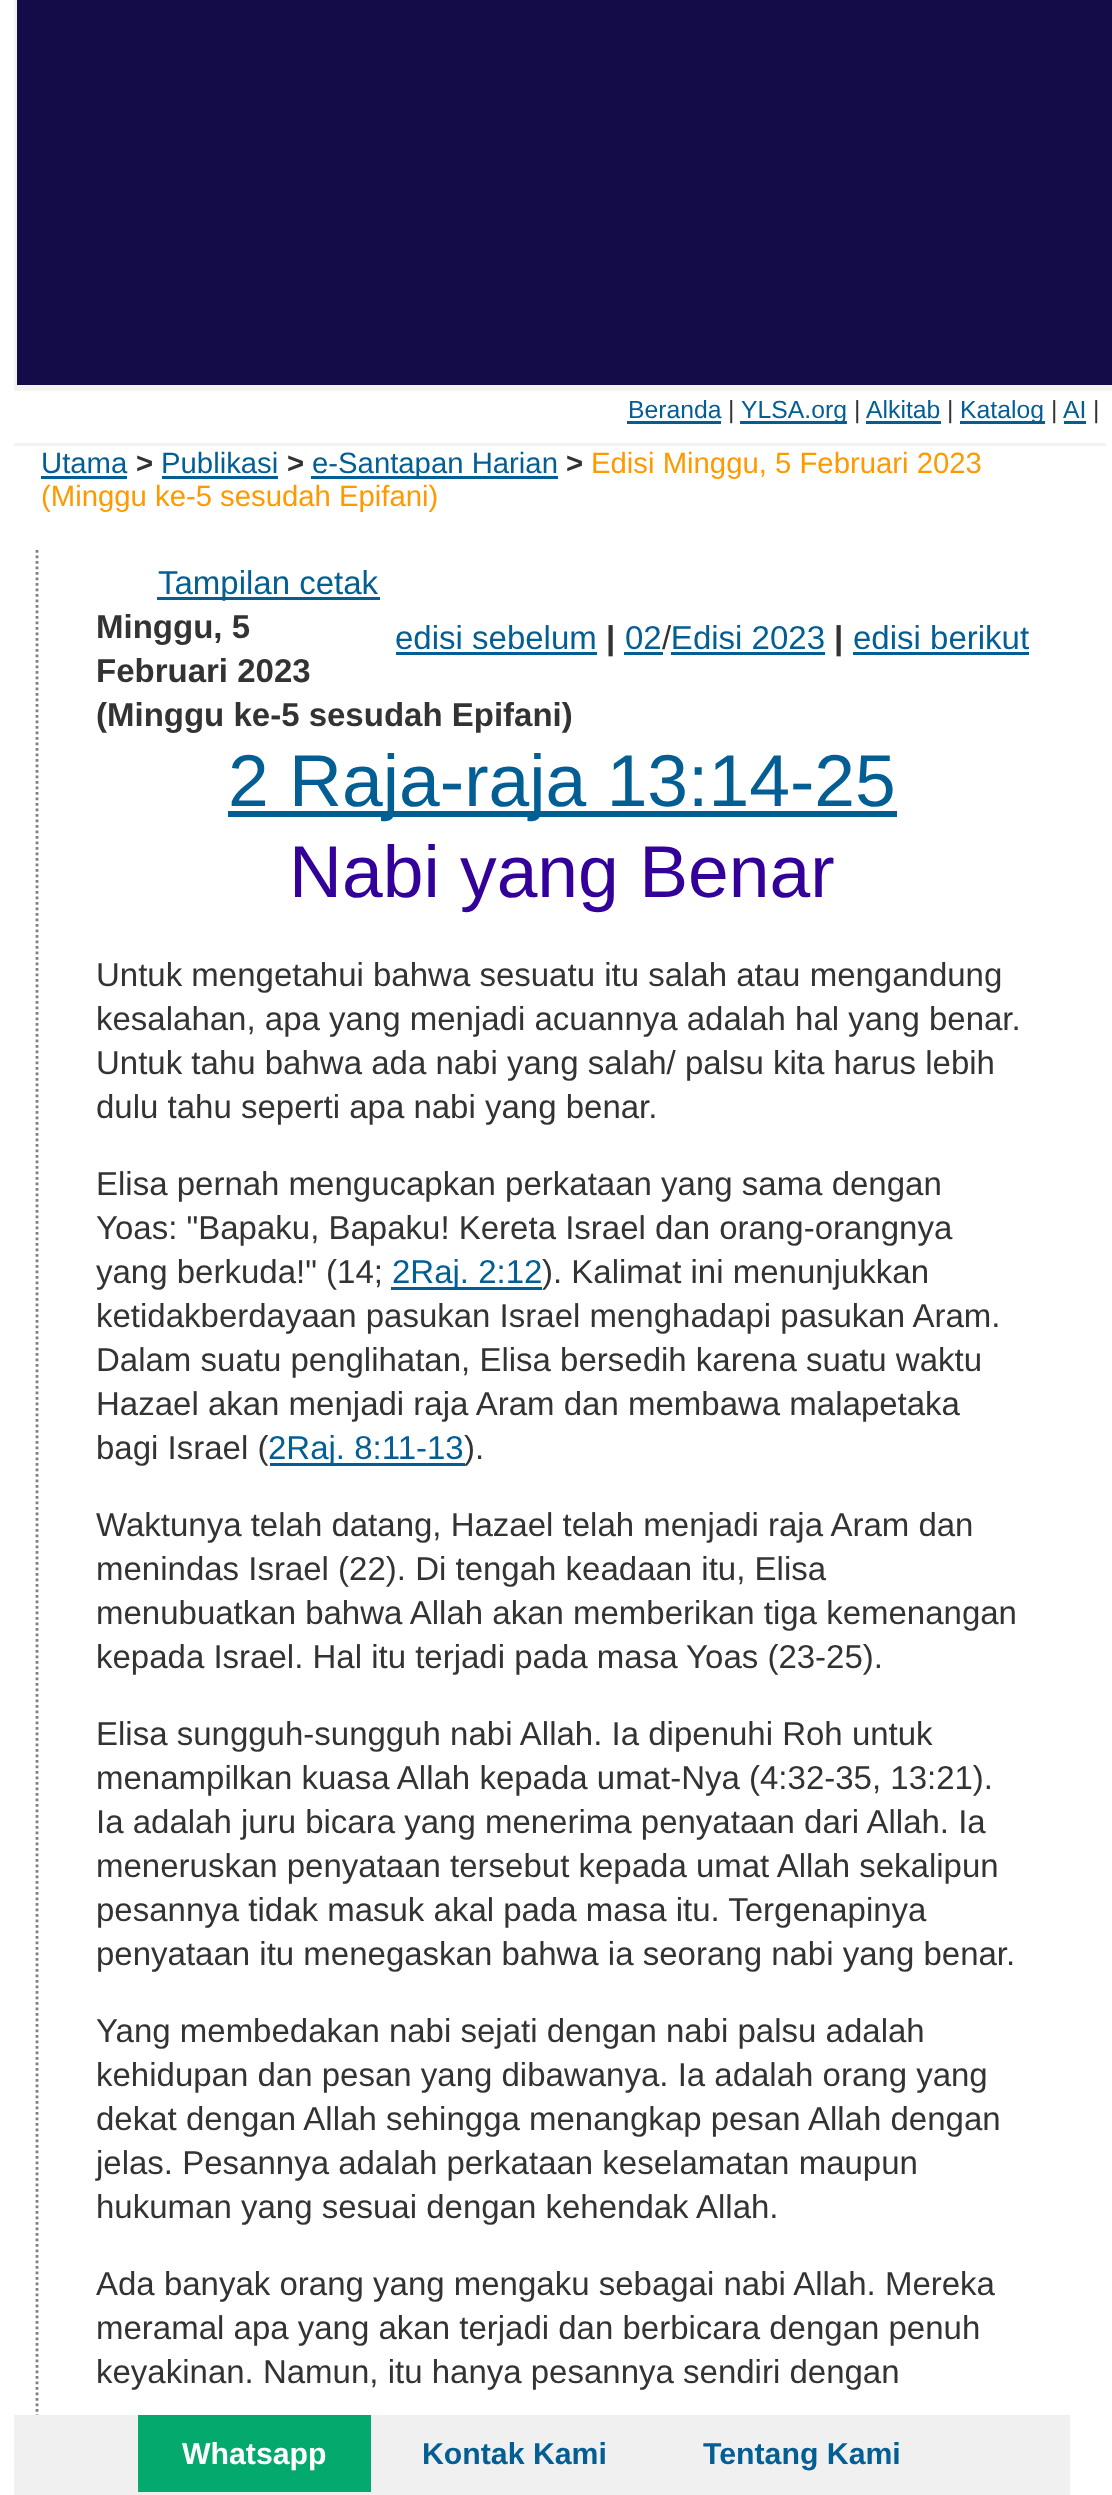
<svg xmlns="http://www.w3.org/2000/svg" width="1112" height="2495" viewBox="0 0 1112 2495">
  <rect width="100%" height="100%" fill="#ffffff"/>
  <rect x="17" y="0" width="1095" height="385" fill="#130c49"/>
  <rect x="14" y="385" width="1098" height="6" fill="#f3f3f3"/>
  <rect x="14" y="0" width="3" height="391" fill="#f3f3f3"/>
  <rect x="14" y="443" width="1092" height="3" fill="#f3f3f3"/>
  <text x="628" y="418" font-family="Liberation Sans" font-size="24.75" fill="#035e94">Beranda</text>
  <rect x="627" y="421" width="94" height="3" fill="#035e94"/>
  <text x="728" y="418" font-family="Liberation Sans" font-size="24.75" fill="#333333">|</text>
  <rect x="740" y="421" width="107" height="3" fill="#035e94"/>
  <text x="741" y="418" font-family="Liberation Sans" font-size="24.75" fill="#035e94">YLSA.org</text>
  <text x="854" y="418" font-family="Liberation Sans" font-size="24.75" fill="#333333">|</text>
  <text x="866" y="418" font-family="Liberation Sans" font-size="24.75" fill="#035e94">Alkitab</text>
  <rect x="866" y="421" width="75" height="3" fill="#035e94"/>
  <text x="947" y="418" font-family="Liberation Sans" font-size="24.75" fill="#333333">|</text>
  <rect x="960" y="421" width="85" height="3" fill="#035e94"/>
  <text x="960" y="418" font-family="Liberation Sans" font-size="24.75" fill="#035e94">Katalog</text>
  <text x="1051" y="418" font-family="Liberation Sans" font-size="24.75" fill="#333333">|</text>
  <text x="1063" y="418" font-family="Liberation Sans" font-size="24.75" fill="#035e94">AI</text>
  <rect x="1064" y="421" width="22" height="3" fill="#035e94"/>
  <text x="1093" y="418" font-family="Liberation Sans" font-size="24.75" fill="#333333">|</text>
  <text x="41" y="473" font-family="Liberation Sans" font-size="29.3" fill="#035e94">Utama</text>
  <rect x="41" y="476" width="86" height="3" fill="#035e94"/>
  <text x="136" y="473" font-family="Liberation Sans" font-size="29.3" font-weight="bold" fill="#333333">&gt;</text>
  <text x="161" y="473" font-family="Liberation Sans" font-size="29.3" fill="#035e94">Publikasi</text>
  <rect x="162" y="476" width="116" height="3" fill="#035e94"/>
  <text x="287" y="473" font-family="Liberation Sans" font-size="29.3" font-weight="bold" fill="#333333">&gt;</text>
  <rect x="311" y="476" width="247" height="3" fill="#035e94"/>
  <text x="312" y="473" font-family="Liberation Sans" font-size="29.3" fill="#035e94">e-Santapan Harian</text>
  <text x="566" y="473" font-family="Liberation Sans" font-size="29.3" font-weight="bold" fill="#333333">&gt;</text>
  <text x="591" y="473" font-family="Liberation Sans" font-size="29.3" fill="#ff9900">Edisi Minggu, 5 Februari 2023</text>
  <text x="41" y="506" font-family="Liberation Sans" font-size="29.3" fill="#ff9900">(Minggu ke-5 sesudah Epifani)</text>
  <path d="M37 550V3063.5" fill="none" stroke="#808080" stroke-width="2.8" stroke-dasharray="2.75 2.75"/>
  <rect x="157" y="597" width="223" height="3" fill="#035e94"/>
  <text x="158" y="594" font-family="Liberation Sans" font-size="33" fill="#035e94">Tampilan cetak</text>
  <text x="96" y="638" font-family="Liberation Sans" font-size="33" font-weight="bold" fill="#333333">Minggu, 5</text>
  <text x="395" y="649" font-family="Liberation Sans" font-size="33" fill="#035e94">edisi sebelum</text>
  <rect x="396" y="652" width="201" height="3" fill="#035e94"/>
  <text x="606" y="649" font-family="Liberation Sans" font-size="33" font-weight="bold" fill="#333333">|</text>
  <text x="625" y="649" font-family="Liberation Sans" font-size="33" fill="#035e94">02 Edisi 2023</text>
  <rect x="624" y="652" width="39" height="3" fill="#035e94"/>
  <text x="662" y="649" font-family="Liberation Sans" font-size="33" fill="#333333">/</text>
  <text x="834" y="649" font-family="Liberation Sans" font-size="33" font-weight="bold" fill="#333333">|</text>
  <text x="853" y="649" font-family="Liberation Sans" font-size="33" fill="#035e94">edisi berikut</text>
  <rect x="853" y="652" width="176" height="3" fill="#035e94"/>
  <rect x="671" y="652" width="154" height="3" fill="#035e94"/>
  <text x="96" y="682" font-family="Liberation Sans" font-size="33" font-weight="bold" fill="#333333">Februari 2023</text>
  <text x="96" y="726" font-family="Liberation Sans" font-size="33" font-weight="bold" fill="#333333">(Minggu ke-5 sesudah Epifani)</text>
  <rect x="228" y="811" width="669" height="6" fill="#035e94"/>
  <text x="228" y="806" font-family="Liberation Sans" font-size="73.25" fill="#035e94">2 Raja-raja 13:14-25</text>
  <text x="289" y="897" font-family="Liberation Sans" font-size="73.25" fill="#330099">Nabi yang Benar</text>
  <text x="96" y="986" font-family="Liberation Sans" font-size="33" fill="#333333">Untuk mengetahui bahwa sesuatu itu salah atau mengandung</text>
  <text x="96" y="1030" font-family="Liberation Sans" font-size="33" fill="#333333">kesalahan, apa yang menjadi acuannya adalah hal yang benar.</text>
  <text x="96" y="1074" font-family="Liberation Sans" font-size="33" fill="#333333">Untuk tahu bahwa ada nabi yang salah/ palsu kita harus lebih</text>
  <text x="96" y="1118" font-family="Liberation Sans" font-size="33" fill="#333333">dulu tahu seperti apa nabi yang benar.</text>
  <text x="96" y="1195" font-family="Liberation Sans" font-size="33" fill="#333333">Elisa pernah mengucapkan perkataan yang sama dengan</text>
  <text x="96" y="1239" font-family="Liberation Sans" font-size="33" fill="#333333">Yoas: "Bapaku, Bapaku! Kereta Israel dan orang-orangnya</text>
  <text x="96" y="1283" font-family="Liberation Sans" font-size="33" fill="#333333">yang berkuda!" (14;</text>
  <rect x="391" y="1287" width="151" height="3" fill="#035e94"/>
  <text x="392" y="1283" font-family="Liberation Sans" font-size="33" fill="#035e94">2Raj. 2:12</text>
  <text x="542" y="1283" font-family="Liberation Sans" font-size="33" fill="#333333">). Kalimat ini menunjukkan</text>
  <text x="96" y="1327" font-family="Liberation Sans" font-size="33" fill="#333333">ketidakberdayaan pasukan Israel menghadapi pasukan Aram.</text>
  <text x="96" y="1371" font-family="Liberation Sans" font-size="33" fill="#333333">Dalam suatu penglihatan, Elisa bersedih karena suatu waktu</text>
  <text x="96" y="1415" font-family="Liberation Sans" font-size="33" fill="#333333">Hazael akan menjadi raja Aram dan membawa malapetaka</text>
  <text x="96" y="1459" font-family="Liberation Sans" font-size="33" fill="#333333">bagi Israel (</text>
  <rect x="270" y="1463" width="195" height="3" fill="#035e94"/>
  <text x="268" y="1459" font-family="Liberation Sans" font-size="33" fill="#035e94">2Raj. 8:11-13</text>
  <text x="464" y="1459" font-family="Liberation Sans" font-size="33" fill="#333333">).</text>
  <text x="96" y="1536" font-family="Liberation Sans" font-size="33" fill="#333333">Waktunya telah datang, Hazael telah menjadi raja Aram dan</text>
  <text x="96" y="1580" font-family="Liberation Sans" font-size="33" fill="#333333">menindas Israel (22). Di tengah keadaan itu, Elisa</text>
  <text x="96" y="1624" font-family="Liberation Sans" font-size="33" fill="#333333">menubuatkan bahwa Allah akan memberikan tiga kemenangan</text>
  <text x="96" y="1668" font-family="Liberation Sans" font-size="33" fill="#333333">kepada Israel. Hal itu terjadi pada masa Yoas (23-25).</text>
  <text x="96" y="1745" font-family="Liberation Sans" font-size="33" fill="#333333">Elisa sungguh-sungguh nabi Allah. Ia dipenuhi Roh untuk</text>
  <text x="96" y="1789" font-family="Liberation Sans" font-size="33" fill="#333333">menampilkan kuasa Allah kepada umat-Nya (4:32-35, 13:21).</text>
  <text x="96" y="1833" font-family="Liberation Sans" font-size="33" fill="#333333">Ia adalah juru bicara yang menerima penyataan dari Allah. Ia</text>
  <text x="96" y="1877" font-family="Liberation Sans" font-size="33" fill="#333333">meneruskan penyataan tersebut kepada umat Allah sekalipun</text>
  <text x="96" y="1921" font-family="Liberation Sans" font-size="33" fill="#333333">pesannya tidak masuk akal pada masa itu. Tergenapinya</text>
  <text x="96" y="1965" font-family="Liberation Sans" font-size="33" fill="#333333">penyataan itu menegaskan bahwa ia seorang nabi yang benar.</text>
  <text x="96" y="2042" font-family="Liberation Sans" font-size="33" fill="#333333">Yang membedakan nabi sejati dengan nabi palsu adalah</text>
  <text x="96" y="2086" font-family="Liberation Sans" font-size="33" fill="#333333">kehidupan dan pesan yang dibawanya. Ia adalah orang yang</text>
  <text x="96" y="2130" font-family="Liberation Sans" font-size="33" fill="#333333">dekat dengan Allah sehingga menangkap pesan Allah dengan</text>
  <text x="96" y="2174" font-family="Liberation Sans" font-size="33" fill="#333333">jelas. Pesannya adalah perkataan keselamatan maupun</text>
  <text x="96" y="2218" font-family="Liberation Sans" font-size="33" fill="#333333">hukuman yang sesuai dengan kehendak Allah.</text>
  <text x="96" y="2295" font-family="Liberation Sans" font-size="33" fill="#333333">Ada banyak orang yang mengaku sebagai nabi Allah. Mereka</text>
  <text x="96" y="2339" font-family="Liberation Sans" font-size="33" fill="#333333">meramal apa yang akan terjadi dan berbicara dengan penuh</text>
  <text x="96" y="2383" font-family="Liberation Sans" font-size="33" fill="#333333">keyakinan. Namun, itu hanya pesannya sendiri dengan</text>
  <rect x="14" y="2415" width="1056" height="80" fill="#f0f0f0"/>
  <rect x="138" y="2415" width="233" height="77" fill="#04aa6d"/>
  <text x="182" y="2464" font-family="Liberation Sans" font-size="30.25" font-weight="bold" fill="#ffffff">Whatsapp</text>
  <text x="422" y="2464" font-family="Liberation Sans" font-size="30.25" font-weight="bold" fill="#035e94">Kontak Kami</text>
  <text x="703" y="2464" font-family="Liberation Sans" font-size="30.25" font-weight="bold" fill="#035e94">Tentang Kami</text>
</svg>
